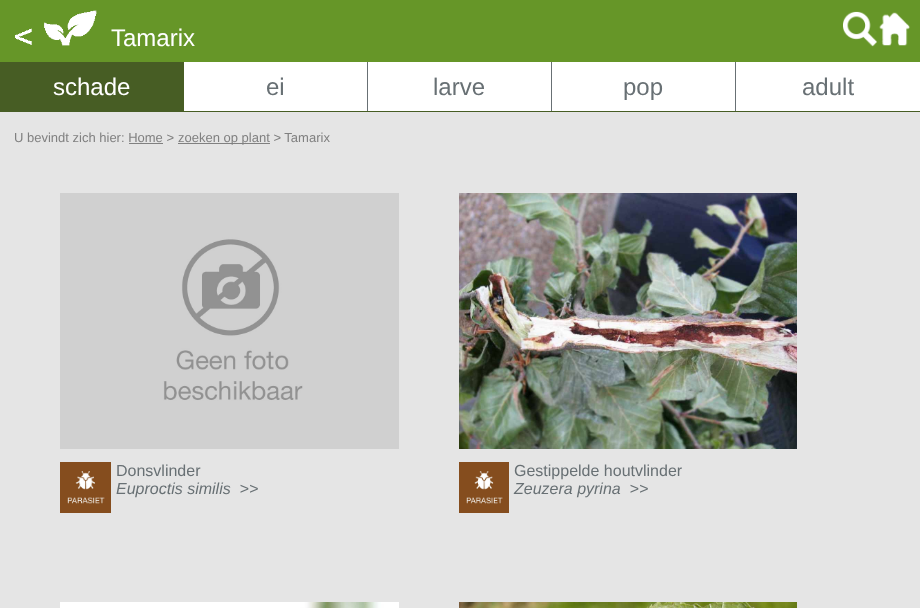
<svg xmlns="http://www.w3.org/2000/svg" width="920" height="608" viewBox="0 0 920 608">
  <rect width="100%" height="100%" fill="#e5e5e5"/>
  <rect x="0" y="0" width="920" height="62" fill="#669628"/>
  <image x="15" y="10" width="82" height="36" href="img1.png"/>
  <text x="111" y="46" font-family="Liberation Sans" font-size="24" fill="#ffffff">Tamarix</text>
  <image x="843" y="11" width="67" height="36" href="img2.png"/>
  <rect x="0" y="62" width="184" height="50" fill="#475d24"/>
  <text x="53" y="95" font-family="Liberation Sans" font-size="24" fill="#ffffff">schade</text>
  <rect x="184" y="62" width="183" height="49" fill="#ffffff"/>
  <rect x="367" y="62" width="1" height="50" fill="#687074"/>
  <rect x="184" y="111" width="184" height="1" fill="#475d24"/>
  <text x="266" y="95" font-family="Liberation Sans" font-size="24" fill="#687074">ei</text>
  <rect x="368" y="62" width="183" height="49" fill="#ffffff"/>
  <rect x="551" y="62" width="1" height="50" fill="#687074"/>
  <rect x="368" y="111" width="184" height="1" fill="#475d24"/>
  <text x="433" y="95" font-family="Liberation Sans" font-size="24" fill="#687074">larve</text>
  <rect x="552" y="62" width="183" height="49" fill="#ffffff"/>
  <rect x="735" y="62" width="1" height="50" fill="#687074"/>
  <rect x="552" y="111" width="368" height="1" fill="#475d24"/>
  <text x="623" y="95" font-family="Liberation Sans" font-size="24" fill="#687074">pop</text>
  <rect x="736" y="62" width="184" height="49" fill="#ffffff"/>
  <text x="802" y="95" font-family="Liberation Sans" font-size="24" fill="#687074">adult</text>
  <text x="14" y="142" font-family="Liberation Sans" font-size="13" fill="#808080">U bevindt zich hier: Home &gt;</text>
  <rect x="129" y="143" width="34" height="1" fill="#808080"/>
  <rect x="178" y="143" width="92" height="1" fill="#808080"/>
  <text x="178" y="142" font-family="Liberation Sans" font-size="13" fill="#808080">zoeken op plant &gt; Tamarix</text>
  <image x="60" y="193" width="339" height="256" href="img3.png"/>
  <image x="60" y="462" width="51" height="51" href="img4.png"/>
  <text x="116" y="476" font-family="Liberation Sans" font-size="16" fill="#687074">Donsvlinder</text>
  <text x="116" y="494" font-family="Liberation Sans" font-size="16" font-style="italic" fill="#687074" xml:space="preserve">Euproctis similis  &gt;&gt;</text>
  <image x="459" y="193" width="338" height="256" href="img5.png"/>
  <image x="459" y="462" width="50" height="51" href="img6.png"/>
  <text x="514" y="476" font-family="Liberation Sans" font-size="16" fill="#687074">Gestippelde houtvlinder</text>
  <text x="514" y="494" font-family="Liberation Sans" font-size="16" font-style="italic" fill="#687074" xml:space="preserve">Zeuzera pyrina  &gt;&gt;</text>
  <image x="60" y="602" width="339" height="6" href="img7.png"/>
  <image x="459" y="602" width="338" height="6" href="img8.png"/>
</svg>
